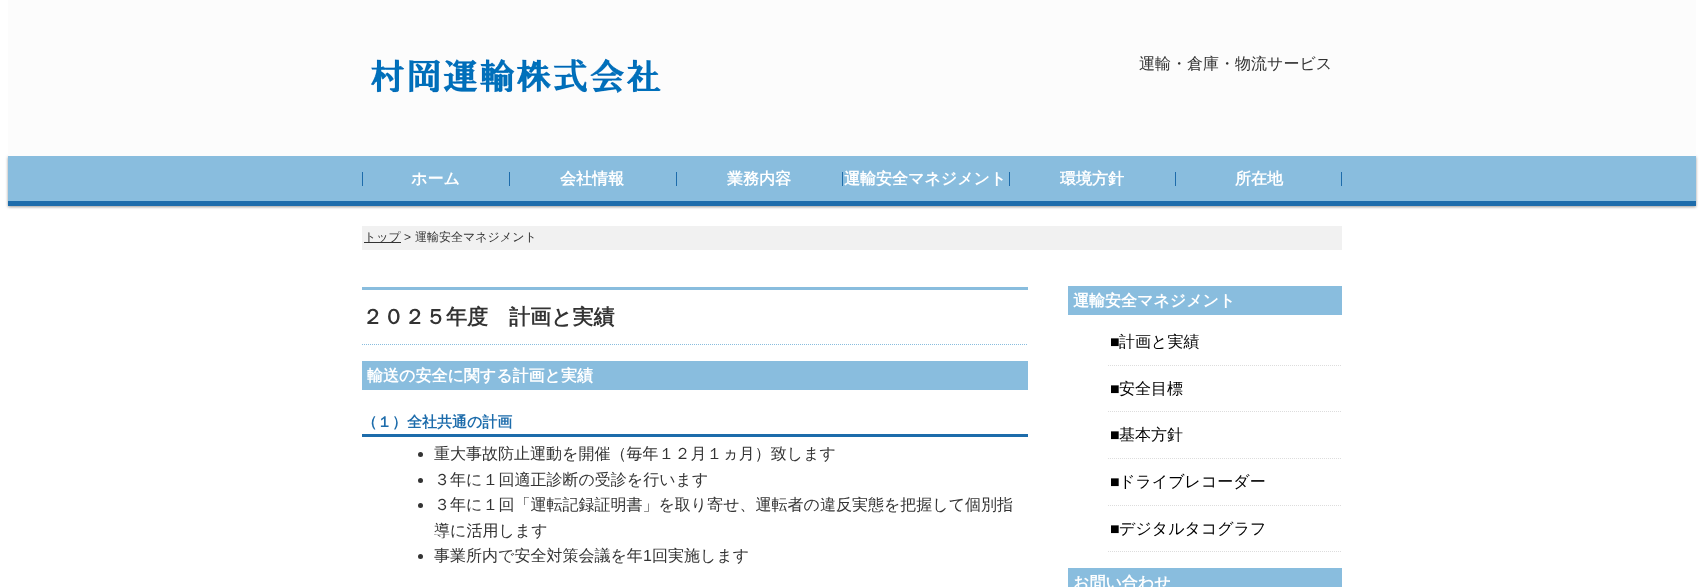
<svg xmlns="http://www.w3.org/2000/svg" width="1704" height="587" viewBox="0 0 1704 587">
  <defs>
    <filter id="blur1" x="-50%" y="-200%" width="200%" height="500%"><feGaussianBlur stdDeviation="1.5"/></filter>
  </defs>
  <rect width="100%" height="100%" fill="#ffffff"/>
  <rect x="8" y="157" width="1688" height="50" fill="#999999" filter="url(#blur1)"/>
  <rect x="8" y="0" width="1688" height="156" fill="#fcfcfc"/>
  <image x="371" y="58" width="290" height="35" href="img1.png"/>
  <text x="1139" y="69" font-family="WenQuanYi Zen Hei" font-size="16" font-weight="500" fill="#333333">運輸・倉庫・物流サービス</text>
  <rect x="8" y="156" width="1688" height="45" fill="#89bdde"/>
  <rect x="8" y="201" width="1688" height="5" fill="#1d6cab"/>
  <rect x="362" y="172" width="1" height="14" fill="#1d6cab"/>
  <text x="411" y="184" font-family="WenQuanYi Zen Hei" font-size="16" font-weight="bold" fill="#ffffff">ホーム</text>
  <rect x="509" y="172" width="1" height="14" fill="#1d6cab"/>
  <text x="560" y="184" font-family="WenQuanYi Zen Hei" font-size="16" font-weight="bold" fill="#ffffff">会社情報</text>
  <rect x="676" y="172" width="1" height="14" fill="#1d6cab"/>
  <text x="727" y="184" font-family="WenQuanYi Zen Hei" font-size="16" font-weight="bold" fill="#ffffff">業務内容</text>
  <rect x="842" y="172" width="1" height="14" fill="#1d6cab"/>
  <text x="844" y="184" font-family="WenQuanYi Zen Hei" font-size="16" font-weight="bold" fill="#ffffff">運輸安全マネジメント</text>
  <rect x="1009" y="172" width="1" height="14" fill="#1d6cab"/>
  <text x="1060" y="184" font-family="WenQuanYi Zen Hei" font-size="16" font-weight="bold" fill="#ffffff">環境方針</text>
  <rect x="1175" y="172" width="1" height="14" fill="#1d6cab"/>
  <text x="1235" y="184" font-family="WenQuanYi Zen Hei" font-size="16" font-weight="bold" fill="#ffffff">所在地</text>
  <rect x="1341" y="172" width="1" height="14" fill="#1d6cab"/>
  <rect x="362" y="226" width="980" height="24" fill="#f1f1f1"/>
  <rect x="364" y="242" width="37" height="1" fill="#333333"/>
  <text x="364" y="241" font-family="WenQuanYi Zen Hei" font-size="12" font-weight="500" fill="#333333">トップ</text>
  <text x="404" y="241" font-family="Liberation Sans" font-size="12" fill="#333333">&gt;</text>
  <text x="415" y="241" font-family="WenQuanYi Zen Hei" font-size="12" font-weight="500" fill="#333333">運輸安全マネジメント</text>
  <rect x="362" y="287" width="666" height="3" fill="#89bdde"/>
  <path d="M362 344.5H1028" fill="none" stroke="#89bdde" stroke-dasharray="1 1"/>
  <text x="362" y="324" font-family="WenQuanYi Zen Hei" font-size="21" font-weight="bold" fill="#333333">２０２５年度　計画と実績</text>
  <rect x="362" y="361" width="666" height="29" fill="#89bdde"/>
  <text x="367" y="381" font-family="WenQuanYi Zen Hei" font-size="16" font-weight="bold" fill="#ffffff">輸送の安全に関する計画と実績</text>
  <rect x="362" y="434" width="666" height="3" fill="#1d6cab"/>
  <text x="362" y="427" font-family="WenQuanYi Zen Hei" font-size="15" font-weight="bold" fill="#1d6cab">（１）全社共通の計画</text>
  <circle cx="420.5" cy="454.5" r="2.5" fill="#333333"/>
  <text x="434" y="459" font-family="WenQuanYi Zen Hei" font-size="16" font-weight="500" fill="#333333">重大事故防止運動を開催（毎年１２月１ヵ月）致します</text>
  <circle cx="420.5" cy="480.5" r="2.5" fill="#333333"/>
  <text x="434" y="485" font-family="WenQuanYi Zen Hei" font-size="16" font-weight="500" fill="#333333">３年に１回適正診断の受診を行います</text>
  <circle cx="420.5" cy="505.5" r="2.5" fill="#333333"/>
  <text x="434" y="510" font-family="WenQuanYi Zen Hei" font-size="16" font-weight="500" fill="#333333">３年に１回「運転記録証明書」を取り寄せ、運転者の違反実態を把握して個別指</text>
  <text x="434" y="536" font-family="WenQuanYi Zen Hei" font-size="16" font-weight="500" fill="#333333">導に活用します</text>
  <circle cx="420.5" cy="556.5" r="2.5" fill="#333333"/>
  <text x="434" y="561" font-family="WenQuanYi Zen Hei" font-size="16" font-weight="500" fill="#333333">事業所内で安全対策会議を年</text>
  <text x="643" y="561" font-family="Liberation Sans" font-size="16" fill="#333333">1</text>
  <text x="652" y="561" font-family="WenQuanYi Zen Hei" font-size="16" font-weight="500" fill="#333333">回実施します</text>
  <rect x="1068" y="286" width="274" height="29" fill="#89bdde"/>
  <text x="1073" y="306" font-family="WenQuanYi Zen Hei" font-size="16" font-weight="bold" fill="#ffffff">運輸安全マネジメント</text>
  <path d="M1108 365.5H1342" fill="none" stroke="#dddddd" stroke-dasharray="1 1"/>
  <text x="1110" y="347" font-family="Liberation Sans" font-size="16" fill="#000000">■</text>
  <text x="1119" y="347" font-family="WenQuanYi Zen Hei" font-size="16" font-weight="500" fill="#000000">計画と実績</text>
  <path d="M1108 411.5H1342" fill="none" stroke="#dddddd" stroke-dasharray="1 1"/>
  <text x="1110" y="394" font-family="Liberation Sans" font-size="16" fill="#000000">■</text>
  <text x="1119" y="394" font-family="WenQuanYi Zen Hei" font-size="16" font-weight="500" fill="#000000">安全目標</text>
  <path d="M1108 458.5H1342" fill="none" stroke="#dddddd" stroke-dasharray="1 1"/>
  <text x="1110" y="440" font-family="Liberation Sans" font-size="16" fill="#000000">■</text>
  <text x="1119" y="440" font-family="WenQuanYi Zen Hei" font-size="16" font-weight="500" fill="#000000">基本方針</text>
  <path d="M1108 505.5H1342" fill="none" stroke="#dddddd" stroke-dasharray="1 1"/>
  <text x="1110" y="487" font-family="Liberation Sans" font-size="16" fill="#000000">■</text>
  <text x="1119" y="487" font-family="WenQuanYi Zen Hei" font-size="16" font-weight="500" fill="#000000">ドライブレコーダー</text>
  <path d="M1108 551.5H1342" fill="none" stroke="#dddddd" stroke-dasharray="1 1"/>
  <text x="1110" y="534" font-family="Liberation Sans" font-size="16" fill="#000000">■</text>
  <text x="1119" y="534" font-family="WenQuanYi Zen Hei" font-size="16" font-weight="500" fill="#000000">デジタルタコグラフ</text>
  <rect x="1068" y="568" width="274" height="19" fill="#89bdde"/>
  <text x="1073" y="588" font-family="WenQuanYi Zen Hei" font-size="16" font-weight="bold" fill="#ffffff">お問い合わせ</text>
</svg>
